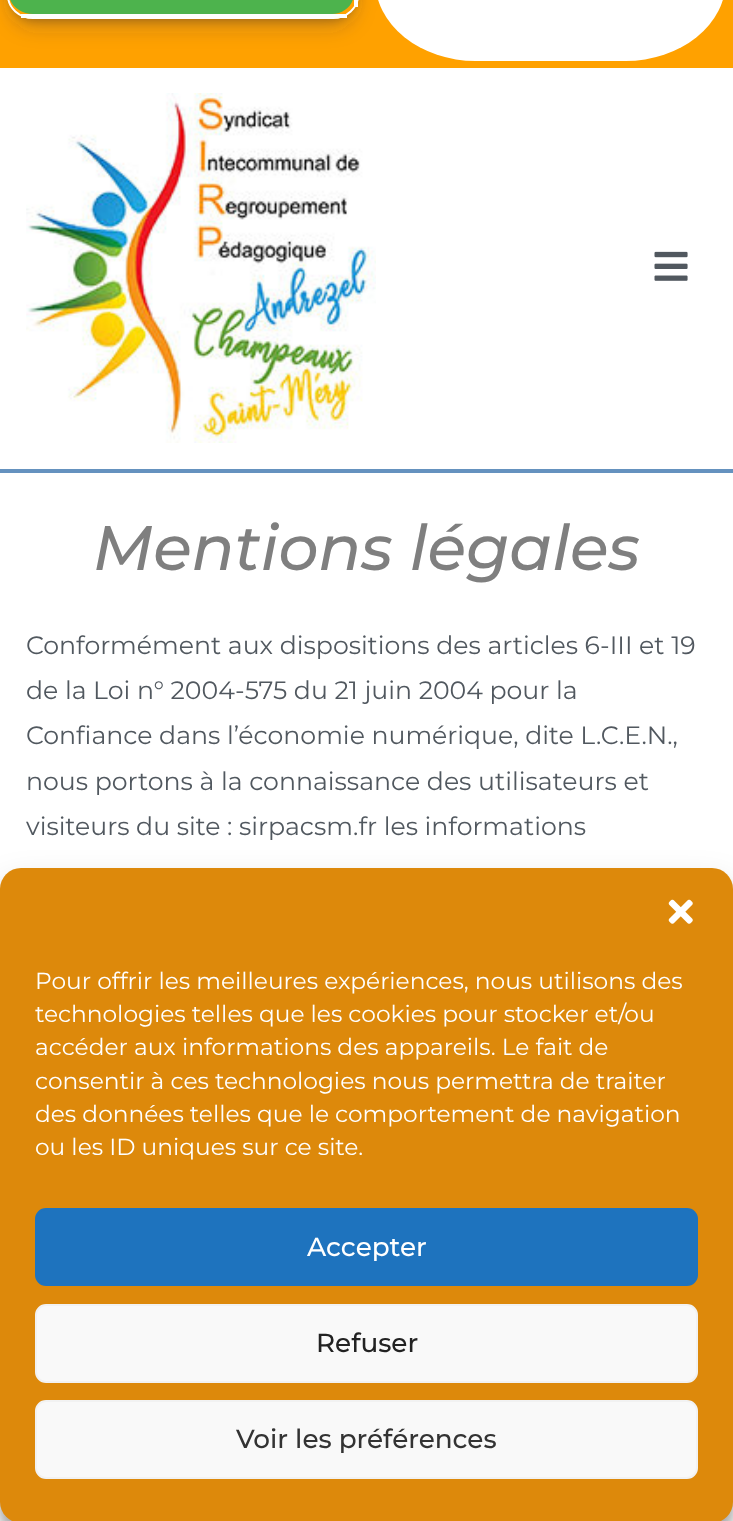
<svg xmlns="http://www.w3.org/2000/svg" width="733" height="1521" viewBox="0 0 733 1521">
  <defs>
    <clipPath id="clip1"><path d="M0 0H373V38H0ZM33-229H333C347.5-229 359-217.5 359-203V-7C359 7.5 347.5 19 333 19H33C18.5 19 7 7.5 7-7V-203C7-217.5 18.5-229 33-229Z" clip-rule="evenodd"/></clipPath>
    <filter id="blur1" x="-50%" y="-200%" width="200%" height="500%"><feGaussianBlur stdDeviation="6"/></filter>
    <clipPath id="clip2"><path d="M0 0H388V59H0ZM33-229H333C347.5-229 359-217.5 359-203V-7C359 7.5 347.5 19 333 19H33C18.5 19 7 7.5 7-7V-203C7-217.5 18.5-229 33-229Z" clip-rule="evenodd"/></clipPath>
    <filter id="blur2" x="-50%" y="-200%" width="200%" height="500%"><feGaussianBlur stdDeviation="10.5"/></filter>
    <filter id="blur3" x="-50%" y="-200%" width="200%" height="500%"><feGaussianBlur stdDeviation="5"/></filter>
    <filter id="blur4" x="-50%" y="-200%" width="200%" height="500%"><feGaussianBlur stdDeviation="17.5"/></filter>
  </defs>
  <rect width="100%" height="100%" fill="#ffffff"/>
  <rect x="0" y="0" width="733" height="68" fill="#ffa100"/>
  <g clip-path="url(#clip1)">
    <rect x="12" y="-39" width="342" height="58" rx="21" fill="#000000" fill-opacity="0.3" filter="url(#blur1)"/>
  </g>
  <g clip-path="url(#clip2)">
    <rect x="11" y="-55" width="344" height="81" rx="23" fill="#32325d" fill-opacity="0.25" filter="url(#blur2)"/>
  </g>
  <path d="M33-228H332C344-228 354-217 354-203V-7C354 5 344 14 332 14H33C20 14 9 5 9-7V-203C9-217 20-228 33-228Z" fill="#4db34d"/>
  <rect x="8" y="-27" width="350" height="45" rx="25" fill="none" stroke="#ffffff" stroke-width="2"/>
  <rect x="354" y="0" width="4" height="7" fill="#ffffff"/>
  <rect x="21" y="14" width="326" height="4" fill="#ffffff"/>
  <rect x="375" y="-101" width="351" height="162" rx="100.5" fill="#ffffff"/>
  <rect x="0" y="469" width="733" height="4" fill="#6592bf"/>
  <image x="26" y="93" width="350" height="350" href="img1.png"/>
  <image x="654" y="251" width="34" height="30" href="img2.png"/>
  <text x="93" y="570" font-family="Montserrat" font-size="63" font-weight="500" font-style="italic" fill="#7f7f7f">Mentions légales</text>
  <text x="26" y="654" font-family="Montserrat" font-size="25.2" fill="#51585f">Conformément aux dispositions des articles 6-III et 19</text>
  <text x="26" y="699" font-family="Montserrat" font-size="25.2" fill="#51585f">de la Loi n° 2004-575 du 21 juin 2004 pour la</text>
  <text x="26" y="744" font-family="Montserrat" font-size="25.2" fill="#51585f">Confiance dans l’économie numérique, dite L.C.E.N.,</text>
  <text x="26" y="790" font-family="Montserrat" font-size="25.2" fill="#51585f">nous portons à la connaissance des utilisateurs et</text>
  <text x="26" y="835" font-family="Montserrat" font-size="25.2" fill="#51585f">visiteurs du site : sirpacsm.fr les informations</text>
  <rect x="0" y="879" width="733" height="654" rx="21" fill="#000000" fill-opacity="0.23" filter="url(#blur3)"/>
  <rect x="0" y="886" width="733" height="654" rx="21" fill="#000000" fill-opacity="0.19" filter="url(#blur4)"/>
  <rect x="0" y="868" width="733" height="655" rx="21" fill="#dd890b"/>
  <image x="668" y="899" width="25" height="25" href="img3.png"/>
  <text x="35" y="989" font-family="Montserrat" font-size="23.3" fill="#ffffff">Pour offrir les meilleures expériences, nous utilisons des</text>
  <text x="35" y="1022" font-family="Montserrat" font-size="23.3" fill="#ffffff">technologies telles que les cookies pour stocker et/ou</text>
  <text x="35" y="1055" font-family="Montserrat" font-size="23.3" fill="#ffffff">accéder aux informations des appareils. Le fait de</text>
  <text x="35" y="1089" font-family="Montserrat" font-size="23.3" fill="#ffffff">consentir à ces technologies nous permettra de traiter</text>
  <text x="35" y="1122" font-family="Montserrat" font-size="23.3" fill="#ffffff">des données telles que le comportement de navigation</text>
  <text x="35" y="1155" font-family="Montserrat" font-size="23.3" fill="#ffffff">ou les ID uniques sur ce site.</text>
  <rect x="36" y="1209" width="661" height="76" rx="10" fill="#1e73be" stroke="#1e73be" stroke-width="2"/>
  <text x="307" y="1256" font-family="Montserrat" font-size="26.25" font-weight="500" fill="#ffffff">Accepter</text>
  <rect x="36" y="1305" width="661" height="77" rx="10" fill="#f9f9f9" stroke="#f2f2f2" stroke-width="2"/>
  <text x="316" y="1352" font-family="Montserrat" font-size="26.25" font-weight="500" fill="#222222">Refuser</text>
  <rect x="36" y="1401" width="661" height="77" rx="10" fill="#f9f9f9" stroke="#f2f2f2" stroke-width="2"/>
  <text x="236" y="1448" font-family="Montserrat" font-size="26.25" font-weight="500" fill="#333333">Voir les préférences</text>
</svg>
